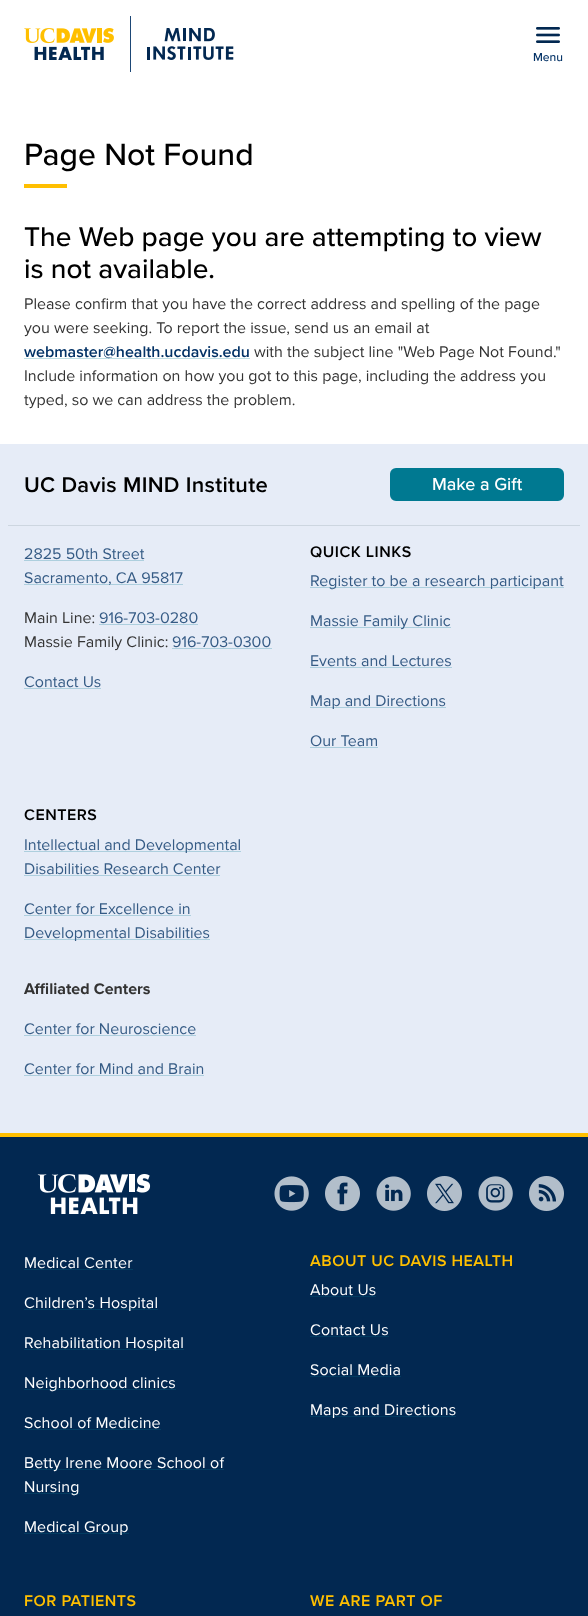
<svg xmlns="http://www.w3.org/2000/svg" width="588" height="1616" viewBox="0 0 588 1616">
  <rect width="100%" height="100%" fill="#ffffff"/>
  <image x="24" y="28" width="90" height="32" href="img1.png"/>
  <rect x="130" y="16" width="1" height="56" fill="#1d4776"/>
  <image x="147" y="28" width="87" height="32" href="img2.png"/>
  <image x="536" y="27" width="24" height="16" href="img3.png"/>
  <text x="533" y="61" font-family="Proxima Nova" font-size="12" font-weight="500" fill="#033266">Menu</text>
  <text x="24" y="165" font-family="Proxima Nova" font-size="32" font-weight="500" fill="#000000">Page Not Found</text>
  <rect x="24" y="184" width="43" height="4" fill="#ffbf00"/>
  <text x="24" y="246" font-family="Proxima Nova" font-size="28" font-weight="500" fill="#000000">The Web page you are attempting to view</text>
  <text x="24" y="278" font-family="Proxima Nova" font-size="28" font-weight="500" fill="#000000">is not available.</text>
  <text x="24" y="309" font-family="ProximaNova" font-size="16" fill="#333333">Please confirm that you have the correct address and spelling of the page</text>
  <text x="24" y="333" font-family="ProximaNova" font-size="16" fill="#333333">you were seeking. To report the issue, send us an email at</text>
  <rect x="24" y="358" width="226" height="1" fill="#bfdee4"/>
  <text x="24" y="357" font-family="Proxima Nova" font-size="16" font-weight="600" fill="#033266">webmaster@health.ucdavis.edu</text>
  <text x="254" y="357" font-family="ProximaNova" font-size="16" fill="#333333">with the subject line "Web Page Not Found."</text>
  <text x="24" y="381" font-family="ProximaNova" font-size="16" fill="#333333">Include information on how you got to this page, including the address you</text>
  <text x="24" y="405" font-family="ProximaNova" font-size="16" fill="#333333">typed, so we can address the problem.</text>
  <rect x="0" y="444" width="588" height="689" fill="#e6ecf7"/>
  <text x="24" y="492" font-family="Proxima Nova" font-size="22" font-weight="600" letter-spacing="0.3" fill="#000000">UC Davis MIND Institute</text>
  <rect x="391" y="469" width="172" height="31" rx="5" fill="#007991" stroke="#007991" stroke-width="2"/>
  <text x="432" y="490" font-family="Proxima Nova" font-size="18" font-weight="500" fill="#ffffff">Make a Gift</text>
  <rect x="8" y="525" width="572" height="1" fill="#cdd6e0"/>
  <text x="24" y="559" font-family="ProximaNova" font-size="16" fill="#355b85">2825 50th Street</text>
  <rect x="24" y="560" width="120" height="1" fill="#adcfde"/>
  <rect x="24" y="584" width="159" height="1" fill="#adcfde"/>
  <text x="24" y="583" font-family="ProximaNova" font-size="16" fill="#355b85">Sacramento, CA 95817</text>
  <text x="24" y="623" font-family="ProximaNova" font-size="16" fill="#333333">Main Line:</text>
  <text x="99" y="623" font-family="ProximaNova" font-size="16" fill="#355b85">916-703-0280</text>
  <rect x="99" y="624" width="99" height="1" fill="#adcfde"/>
  <text x="24" y="647" font-family="ProximaNova" font-size="16" fill="#333333">Massie Family Clinic:</text>
  <text x="172" y="647" font-family="ProximaNova" font-size="16" fill="#355b85">916-703-0300</text>
  <rect x="172" y="648" width="100" height="1" fill="#adcfde"/>
  <text x="24" y="687" font-family="ProximaNova" font-size="16" fill="#355b85">Contact Us</text>
  <rect x="24" y="688" width="77" height="1" fill="#adcfde"/>
  <text x="310" y="557" font-family="Proxima Nova" font-size="16" font-weight="600" letter-spacing="0.5" fill="#000000">QUICK LINKS</text>
  <rect x="310" y="587" width="254" height="1" fill="#adcfde"/>
  <text x="310" y="586" font-family="ProximaNova" font-size="16" fill="#355b85">Register to be a research participant</text>
  <rect x="310" y="627" width="141" height="1" fill="#adcfde"/>
  <text x="310" y="626" font-family="ProximaNova" font-size="16" fill="#355b85">Massie Family Clinic</text>
  <text x="310" y="666" font-family="ProximaNova" font-size="16" fill="#355b85">Events and Lectures</text>
  <rect x="310" y="667" width="142" height="1" fill="#adcfde"/>
  <rect x="310" y="707" width="136" height="1" fill="#adcfde"/>
  <text x="310" y="706" font-family="ProximaNova" font-size="16" fill="#355b85">Map and Directions</text>
  <text x="310" y="746" font-family="ProximaNova" font-size="16" fill="#355b85">Our Team</text>
  <rect x="310" y="747" width="68" height="1" fill="#adcfde"/>
  <text x="24" y="820" font-family="Proxima Nova" font-size="16" font-weight="600" letter-spacing="0.5" fill="#000000">CENTERS</text>
  <rect x="24" y="851" width="217" height="1" fill="#adcfde"/>
  <text x="24" y="850" font-family="ProximaNova" font-size="16" fill="#355b85">Intellectual and Developmental</text>
  <text x="24" y="874" font-family="ProximaNova" font-size="16" fill="#355b85">Disabilities Research Center</text>
  <rect x="24" y="875" width="196" height="1" fill="#adcfde"/>
  <text x="24" y="914" font-family="ProximaNova" font-size="16" fill="#355b85">Center for Excellence in</text>
  <rect x="24" y="915" width="167" height="1" fill="#adcfde"/>
  <rect x="24" y="939" width="186" height="1" fill="#adcfde"/>
  <text x="24" y="938" font-family="ProximaNova" font-size="16" fill="#355b85">Developmental Disabilities</text>
  <text x="24" y="994" font-family="ProximaNova" font-size="16" font-weight="bold" fill="#333333">Affiliated Centers</text>
  <text x="24" y="1034" font-family="ProximaNova" font-size="16" fill="#355b85">Center for Neuroscience</text>
  <rect x="24" y="1035" width="172" height="1" fill="#adcfde"/>
  <text x="24" y="1074" font-family="ProximaNova" font-size="16" fill="#355b85">Center for Mind and Brain</text>
  <rect x="24" y="1075" width="180" height="1" fill="#adcfde"/>
  <rect x="0" y="1137" width="588" height="479" fill="#022851"/>
  <rect x="0" y="1133" width="588" height="4" fill="#ffbf00"/>
  <image x="37" y="1174" width="114" height="40" href="img4.png"/>
  <image x="274" y="1176" width="35" height="35" href="img5.png"/>
  <image x="325" y="1176" width="35" height="35" href="img6.png"/>
  <image x="376" y="1176" width="35" height="35" href="img7.png"/>
  <image x="427" y="1176" width="35" height="35" href="img8.png"/>
  <image x="478" y="1176" width="35" height="35" href="img9.png"/>
  <image x="529" y="1176" width="35" height="35" href="img10.png"/>
  <text x="24" y="1268" font-family="ProximaNova" font-size="16" letter-spacing="0.15" fill="#ffffff">Medical Center</text>
  <rect x="24" y="1269" width="109" height="1" fill="#023c61"/>
  <rect x="24" y="1309" width="134" height="1" fill="#023c61"/>
  <text x="24" y="1308" font-family="ProximaNova" font-size="16" letter-spacing="0.15" fill="#ffffff">Children’s Hospital</text>
  <rect x="24" y="1349" width="160" height="1" fill="#023c61"/>
  <text x="24" y="1348" font-family="ProximaNova" font-size="16" letter-spacing="0.15" fill="#ffffff">Rehabilitation Hospital</text>
  <rect x="24" y="1389" width="152" height="1" fill="#023c61"/>
  <text x="24" y="1388" font-family="ProximaNova" font-size="16" letter-spacing="0.15" fill="#ffffff">Neighborhood clinics</text>
  <text x="24" y="1428" font-family="ProximaNova" font-size="16" letter-spacing="0.15" fill="#ffffff">School of Medicine</text>
  <rect x="24" y="1429" width="137" height="1" fill="#023c61"/>
  <rect x="24" y="1469" width="200" height="1" fill="#023c61"/>
  <text x="24" y="1468" font-family="ProximaNova" font-size="16" letter-spacing="0.15" fill="#ffffff">Betty Irene Moore School of</text>
  <rect x="24" y="1493" width="56" height="1" fill="#023c61"/>
  <text x="24" y="1492" font-family="ProximaNova" font-size="16" letter-spacing="0.15" fill="#ffffff">Nursing</text>
  <rect x="24" y="1533" width="105" height="1" fill="#023c61"/>
  <text x="24" y="1532" font-family="ProximaNova" font-size="16" letter-spacing="0.15" fill="#ffffff">Medical Group</text>
  <text x="310" y="1266" font-family="Proxima Nova" font-size="16" font-weight="600" letter-spacing="0.5" fill="#ffbf00">ABOUT UC DAVIS HEALTH</text>
  <text x="310" y="1295" font-family="ProximaNova" font-size="16" letter-spacing="0.15" fill="#ffffff">About Us</text>
  <rect x="310" y="1296" width="66" height="1" fill="#023c61"/>
  <text x="310" y="1335" font-family="ProximaNova" font-size="16" letter-spacing="0.15" fill="#ffffff">Contact Us</text>
  <rect x="310" y="1336" width="79" height="1" fill="#023c61"/>
  <text x="310" y="1375" font-family="ProximaNova" font-size="16" letter-spacing="0.15" fill="#ffffff">Social Media</text>
  <rect x="310" y="1376" width="91" height="1" fill="#023c61"/>
  <rect x="310" y="1416" width="146" height="1" fill="#023c61"/>
  <text x="310" y="1415" font-family="ProximaNova" font-size="16" letter-spacing="0.15" fill="#ffffff">Maps and Directions</text>
  <text x="24" y="1606" font-family="Proxima Nova" font-size="16" font-weight="600" letter-spacing="0.5" fill="#ffbf00">FOR PATIENTS</text>
  <text x="310" y="1606" font-family="Proxima Nova" font-size="16" font-weight="600" letter-spacing="0.5" fill="#ffbf00">WE ARE PART OF</text>
</svg>
